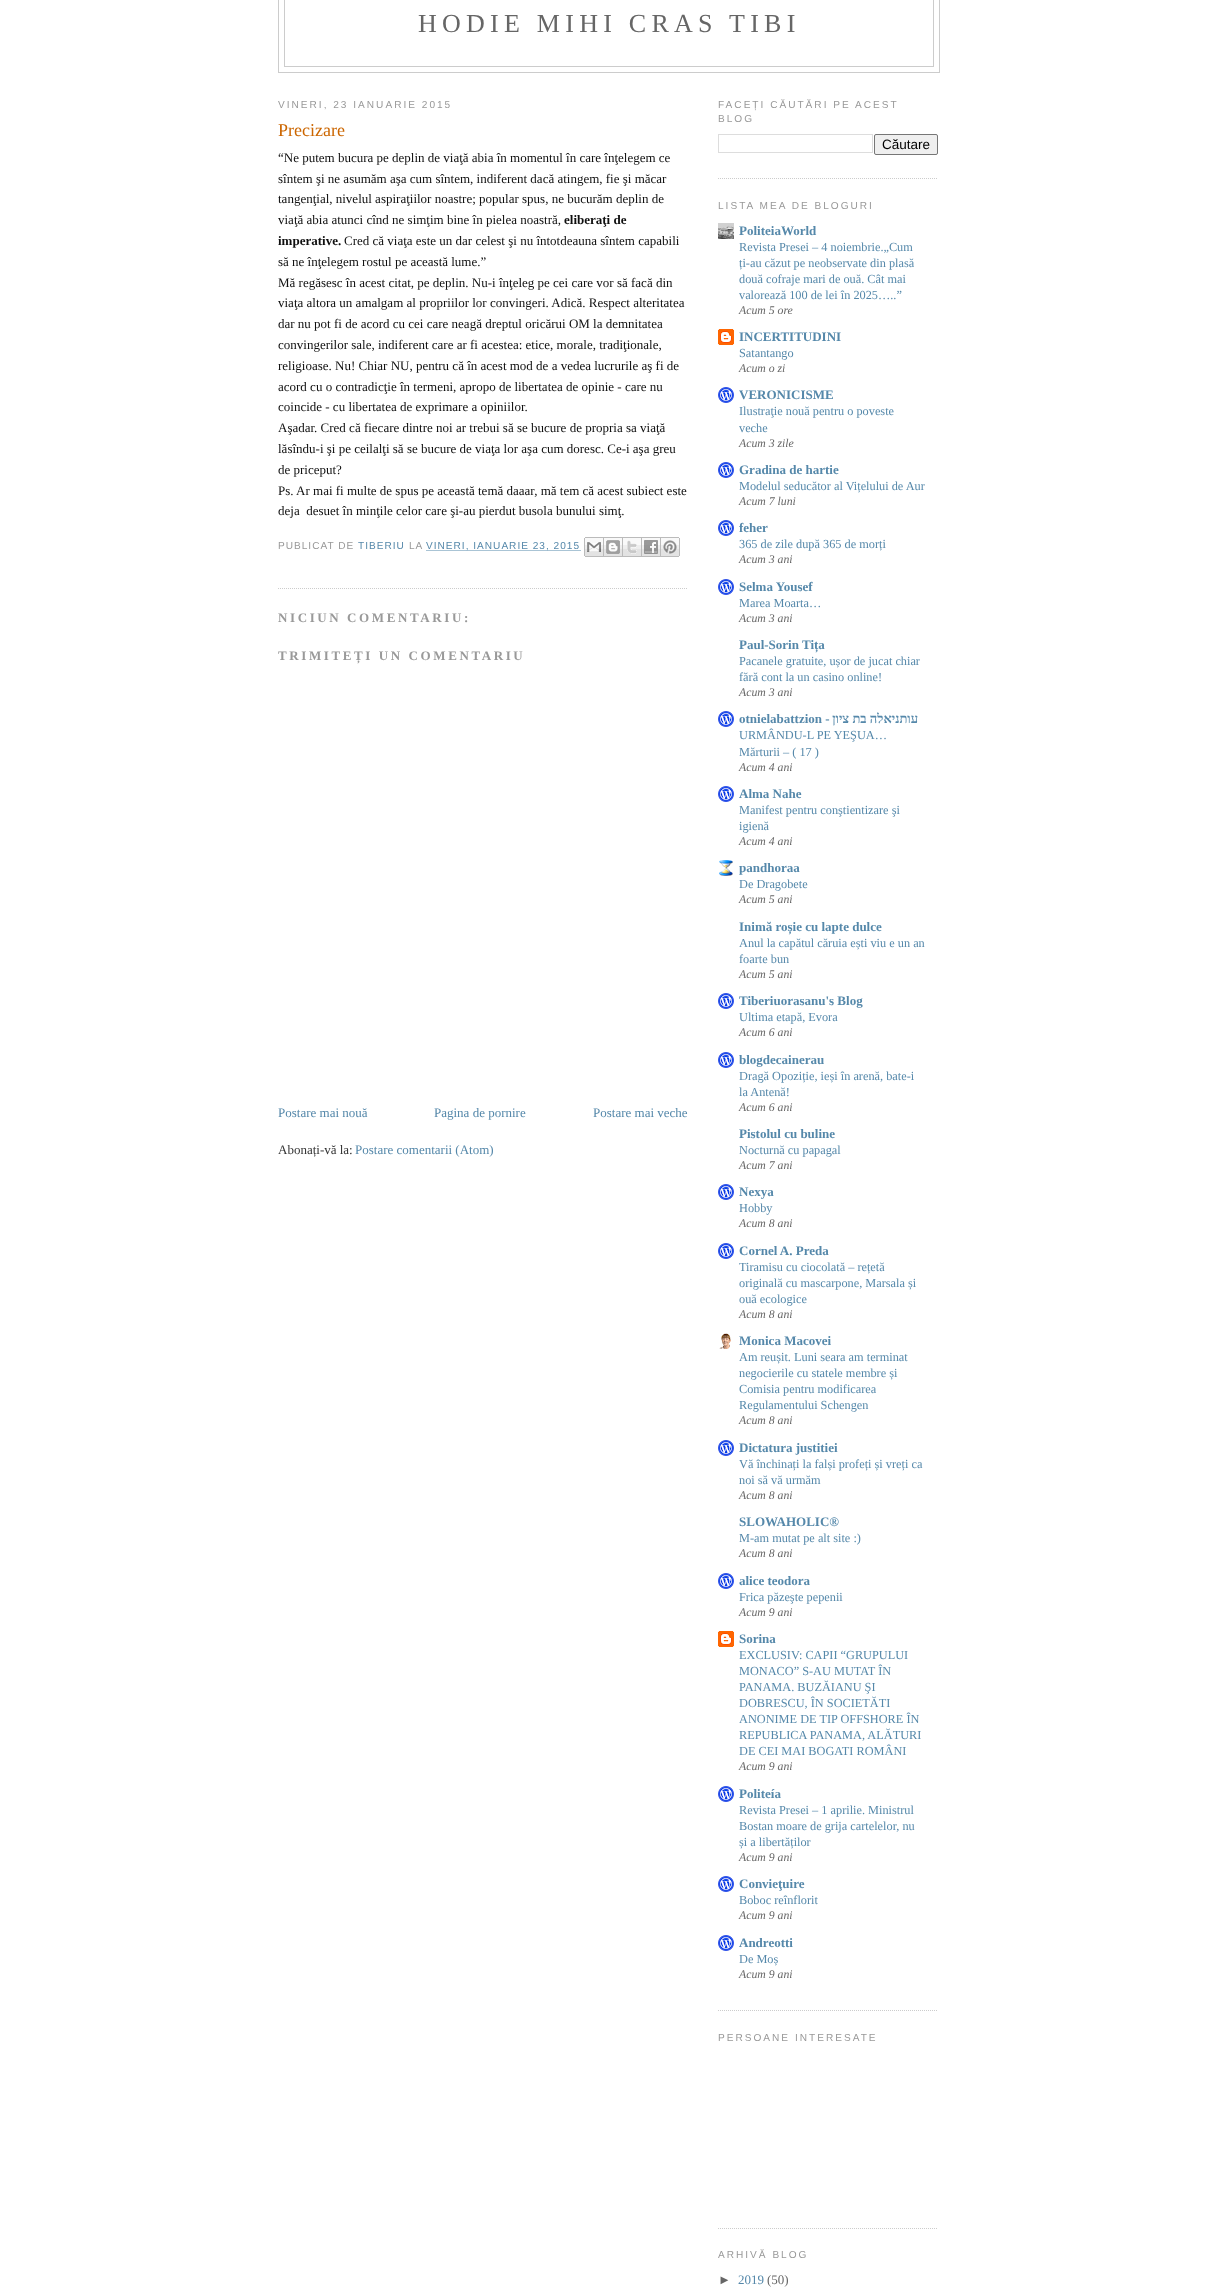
<svg xmlns="http://www.w3.org/2000/svg" width="1215" height="2294" viewBox="0 0 1215 2294">
  <defs>
    <clipPath id="clip1"><rect x="278" y="83" width="410" height="1122"/></clipPath>
  </defs>
  <rect width="100%" height="100%" fill="#ffffff"/>
  <rect x="278.5" y="-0.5" width="661" height="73" fill="none" stroke="#cccccc"/>
  <rect x="284.5" y="-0.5" width="649" height="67" fill="none" stroke="#cccccc"/>
  <text x="418" y="32" font-family="Liberation Serif" font-size="26" letter-spacing="5.25" fill="#666666">HODIE MIHI CRAS TIBI</text>
  <text x="278" y="108" font-family="Liberation Sans" font-size="10.1" letter-spacing="2" fill="#999999">VINERI, 23 IANUARIE 2015</text>
  <path d="M278 588.5H688" fill="none" stroke="#cccccc" stroke-dasharray="1 1"/>
  <text x="278" y="136" font-family="Liberation Serif" font-size="18" fill="#cc6600">Precizare</text>
  <text x="278" y="162" font-family="Liberation Serif" font-size="13" fill="#0f0f0f">“Ne putem bucura pe deplin de viaţă abia în momentul în care înţelegem ce</text>
  <text x="278" y="183" font-family="Liberation Serif" font-size="13" fill="#0f0f0f">sîntem şi ne asumăm aşa cum sîntem, indiferent dacă atingem, fie şi măcar</text>
  <text x="278" y="203" font-family="Liberation Serif" font-size="13" fill="#0f0f0f">tangenţial, nivelul aspiraţiilor noastre; popular spus, ne bucurăm deplin de</text>
  <text x="278" y="224" font-family="Liberation Serif" font-size="13" fill="#0f0f0f">viaţă abia atunci cînd ne simţim bine în pielea noastră,</text>
  <text x="564" y="224" font-family="Liberation Serif" font-size="13" font-weight="bold" fill="#0f0f0f">eliberaţi de</text>
  <text x="278" y="245" font-family="Liberation Serif" font-size="13" font-weight="bold" fill="#0f0f0f">imperative.</text>
  <text x="344" y="245" font-family="Liberation Serif" font-size="13" fill="#0f0f0f">Cred că viaţa este un dar celest şi nu întotdeauna sîntem capabili</text>
  <text x="278" y="266" font-family="Liberation Serif" font-size="13" fill="#0f0f0f">să ne înţelegem rostul pe această lume.”</text>
  <text x="278" y="287" font-family="Liberation Serif" font-size="13" fill="#0f0f0f">Mă regăsesc în acest citat, pe deplin. Nu-i înţeleg pe cei care vor să facă din</text>
  <text x="278" y="307" font-family="Liberation Serif" font-size="13" fill="#0f0f0f">viaţa altora un amalgam al propriilor lor convingeri. Adică. Respect alteritatea</text>
  <text x="278" y="328" font-family="Liberation Serif" font-size="13" fill="#0f0f0f">dar nu pot fi de acord cu cei care neagă dreptul oricărui OM la demnitatea</text>
  <text x="278" y="349" font-family="Liberation Serif" font-size="13" fill="#0f0f0f">convingerilor sale, indiferent care ar fi acestea: etice, morale, tradiţionale,</text>
  <text x="278" y="370" font-family="Liberation Serif" font-size="13" fill="#0f0f0f">religioase. Nu! Chiar NU, pentru că în acest mod de a vedea lucrurile aş fi de</text>
  <text x="278" y="391" font-family="Liberation Serif" font-size="13" fill="#0f0f0f">acord cu o contradicţie în termeni, apropo de libertatea de opinie - care nu</text>
  <text x="278" y="411" font-family="Liberation Serif" font-size="13" fill="#0f0f0f">coincide - cu libertatea de exprimare a opiniilor.</text>
  <text x="278" y="432" font-family="Liberation Serif" font-size="13" fill="#0f0f0f">Aşadar. Cred că fiecare dintre noi ar trebui să se bucure de propria sa viaţă</text>
  <text x="278" y="453" font-family="Liberation Serif" font-size="13" fill="#0f0f0f">lăsîndu-i şi pe ceilalţi să se bucure de viaţa lor aşa cum doresc. Ce-i aşa greu</text>
  <text x="278" y="474" font-family="Liberation Serif" font-size="13" fill="#0f0f0f">de priceput?</text>
  <text x="278" y="495" font-family="Liberation Serif" font-size="13" fill="#0f0f0f">Ps. Ar mai fi multe de spus pe această temă daaar, mă tem că acest subiect este</text>
  <text x="278" y="515" font-family="Liberation Serif" font-size="13" fill="#0f0f0f" xml:space="preserve">deja  desuet în minţile celor care şi-au pierdut busola bunului simţ.</text>
  <text x="278" y="549" font-family="Liberation Sans" font-size="10.1" letter-spacing="1" fill="#999999">PUBLICAT DE</text>
  <text x="358" y="549" font-family="Liberation Sans" font-size="10.1" letter-spacing="1" fill="#5588aa">TIBERIU</text>
  <text x="409" y="549" font-family="Liberation Sans" font-size="10.1" letter-spacing="1" fill="#999999">LA</text>
  <path d="M426.5 550.5H581" fill="none" stroke="#5588aa" stroke-dasharray="1 1"/>
  <text x="426" y="549" font-family="Liberation Sans" font-size="10.1" letter-spacing="1" fill="#5588aa">VINERI, IANUARIE 23, 2015</text>
  <image x="584" y="537" width="20" height="20" href="img1.png"/>
  <image x="604" y="537" width="19" height="20" href="img2.png"/>
  <image x="623" y="537" width="19" height="20" href="img3.png"/>
  <image x="642" y="537" width="19" height="20" href="img4.png"/>
  <image x="661" y="537" width="19" height="20" href="img5.png"/>
  <text x="278" y="622" font-family="Liberation Serif" font-size="13" font-weight="bold" letter-spacing="2.6" fill="#999999">NICIUN COMENTARIU:</text>
  <g clip-path="url(#clip1)">
    <text x="278" y="660" font-family="Liberation Serif" font-size="13" font-weight="bold" letter-spacing="2.6" fill="#999999">TRIMITEȚI UN COMENTARIU</text>
  </g>
  <text x="278" y="1117" font-family="Liberation Serif" font-size="13" fill="#5588aa">Postare mai nouă</text>
  <text x="434" y="1117" font-family="Liberation Serif" font-size="13" fill="#5588aa">Pagina de pornire</text>
  <text x="593" y="1117" font-family="Liberation Serif" font-size="13" fill="#5588aa">Postare mai veche</text>
  <text x="278" y="1154" font-family="Liberation Serif" font-size="13" fill="#333333">Abonați-vă la:</text>
  <text x="355" y="1154" font-family="Liberation Serif" font-size="13" fill="#5588aa">Postare comentarii (Atom)</text>
  <path d="M718 178.5H938" fill="none" stroke="#cccccc" stroke-dasharray="1 1"/>
  <text x="718" y="108" font-family="Liberation Sans" font-size="10.1" letter-spacing="2" fill="#999999">FACEȚI CĂUTĂRI PE ACEST</text>
  <text x="718" y="122" font-family="Liberation Sans" font-size="10.1" letter-spacing="2" fill="#999999">BLOG</text>
  <rect x="718.5" y="134.5" width="154" height="18" fill="none" stroke="#dddddd"/>
  <rect x="874.5" y="134.5" width="63" height="20" rx="1.5" fill="#efefef" stroke="#767676"/>
  <text x="882" y="149" font-family="Liberation Sans" font-size="13.5" fill="#000000">Căutare</text>
  <path d="M718 2010.5H938" fill="none" stroke="#cccccc" stroke-dasharray="1 1"/>
  <text x="718" y="209" font-family="Liberation Sans" font-size="10.1" letter-spacing="2" fill="#999999">LISTA MEA DE BLOGURI</text>
  <image x="718" y="223" width="16" height="16" href="img6.png"/>
  <text x="739" y="235" font-family="Liberation Serif" font-size="13" font-weight="bold" fill="#5588aa">PoliteiaWorld</text>
  <text x="739" y="251" font-family="Liberation Serif" font-size="12.3" fill="#5588aa">Revista Presei – 4 noiembrie.„Cum</text>
  <text x="739" y="267" font-family="Liberation Serif" font-size="12.3" fill="#5588aa">ți-au căzut pe neobservate din plasă</text>
  <text x="739" y="283" font-family="Liberation Serif" font-size="12.3" fill="#5588aa">două cofraje mari de ouă. Cât mai</text>
  <text x="739" y="299" font-family="Liberation Serif" font-size="12.3" fill="#5588aa">valorează 100 de lei în 2025…..”</text>
  <text x="739" y="314" font-family="Liberation Serif" font-size="11.75" font-style="italic" fill="#666666">Acum 5 ore</text>
  <image x="718" y="329" width="16" height="16" href="img7.png"/>
  <text x="739" y="341" font-family="Liberation Serif" font-size="13" font-weight="bold" fill="#5588aa">INCERTITUDINI</text>
  <text x="739" y="357" font-family="Liberation Serif" font-size="12.3" fill="#5588aa">Satantango</text>
  <text x="739" y="372" font-family="Liberation Serif" font-size="11.75" font-style="italic" fill="#666666">Acum o zi</text>
  <image x="718" y="387" width="16" height="16" href="img8.png"/>
  <text x="739" y="399" font-family="Liberation Serif" font-size="13" font-weight="bold" fill="#5588aa">VERONICISME</text>
  <text x="739" y="415" font-family="Liberation Serif" font-size="12.3" fill="#5588aa">Ilustraţie nouă pentru o poveste</text>
  <text x="739" y="432" font-family="Liberation Serif" font-size="12.3" fill="#5588aa">veche</text>
  <text x="739" y="447" font-family="Liberation Serif" font-size="11.75" font-style="italic" fill="#666666">Acum 3 zile</text>
  <image x="718" y="462" width="16" height="16" href="img8.png"/>
  <text x="739" y="474" font-family="Liberation Serif" font-size="13" font-weight="bold" fill="#5588aa">Gradina de hartie</text>
  <text x="739" y="490" font-family="Liberation Serif" font-size="12.3" fill="#5588aa">Modelul seducător al Vițelului de Aur</text>
  <text x="739" y="505" font-family="Liberation Serif" font-size="11.75" font-style="italic" fill="#666666">Acum 7 luni</text>
  <image x="718" y="520" width="16" height="16" href="img8.png"/>
  <text x="739" y="532" font-family="Liberation Serif" font-size="13" font-weight="bold" fill="#5588aa">feher</text>
  <text x="739" y="548" font-family="Liberation Serif" font-size="12.3" fill="#5588aa">365 de zile după 365 de morți</text>
  <text x="739" y="563" font-family="Liberation Serif" font-size="11.75" font-style="italic" fill="#666666">Acum 3 ani</text>
  <image x="718" y="579" width="16" height="16" href="img8.png"/>
  <text x="739" y="591" font-family="Liberation Serif" font-size="13" font-weight="bold" fill="#5588aa">Selma Yousef</text>
  <text x="739" y="607" font-family="Liberation Serif" font-size="12.3" fill="#5588aa">Marea Moarta…</text>
  <text x="739" y="622" font-family="Liberation Serif" font-size="11.75" font-style="italic" fill="#666666">Acum 3 ani</text>
  <text x="739" y="649" font-family="Liberation Serif" font-size="13" font-weight="bold" fill="#5588aa">Paul-Sorin Tița</text>
  <text x="739" y="665" font-family="Liberation Serif" font-size="12.3" fill="#5588aa">Pacanele gratuite, ușor de jucat chiar</text>
  <text x="739" y="681" font-family="Liberation Serif" font-size="12.3" fill="#5588aa">fără cont la un casino online!</text>
  <text x="739" y="696" font-family="Liberation Serif" font-size="11.75" font-style="italic" fill="#666666">Acum 3 ani</text>
  <image x="718" y="711" width="16" height="16" href="img8.png"/>
  <text x="739" y="723" font-family="Liberation Serif" font-size="13" font-weight="bold" fill="#5588aa">otnielabattzion -</text>
  <text x="918" y="723" font-family="Liberation Serif" font-size="13" font-weight="bold" direction="rtl" fill="#5588aa">עותניאלה בת ציון</text>
  <text x="739" y="739" font-family="Liberation Serif" font-size="12.3" fill="#5588aa">URMÂNDU-L PE YEŞUA…</text>
  <text x="739" y="756" font-family="Liberation Serif" font-size="12.3" fill="#5588aa">Mărturii – ( 17 )</text>
  <text x="739" y="771" font-family="Liberation Serif" font-size="11.75" font-style="italic" fill="#666666">Acum 4 ani</text>
  <image x="718" y="786" width="16" height="16" href="img8.png"/>
  <text x="739" y="798" font-family="Liberation Serif" font-size="13" font-weight="bold" fill="#5588aa">Alma Nahe</text>
  <text x="739" y="814" font-family="Liberation Serif" font-size="12.3" fill="#5588aa">Manifest pentru conştientizare şi</text>
  <text x="739" y="830" font-family="Liberation Serif" font-size="12.3" fill="#5588aa">igienă</text>
  <text x="739" y="845" font-family="Liberation Serif" font-size="11.75" font-style="italic" fill="#666666">Acum 4 ani</text>
  <image x="719" y="860" width="14" height="16" href="img9.png"/>
  <text x="739" y="872" font-family="Liberation Serif" font-size="13" font-weight="bold" fill="#5588aa">pandhoraa</text>
  <text x="739" y="888" font-family="Liberation Serif" font-size="12.3" fill="#5588aa">De Dragobete</text>
  <text x="739" y="903" font-family="Liberation Serif" font-size="11.75" font-style="italic" fill="#666666">Acum 5 ani</text>
  <text x="739" y="931" font-family="Liberation Serif" font-size="13" font-weight="bold" fill="#5588aa">Inimă roșie cu lapte dulce</text>
  <text x="739" y="947" font-family="Liberation Serif" font-size="12.3" fill="#5588aa">Anul la capătul căruia ești viu e un an</text>
  <text x="739" y="963" font-family="Liberation Serif" font-size="12.3" fill="#5588aa">foarte bun</text>
  <text x="739" y="978" font-family="Liberation Serif" font-size="11.75" font-style="italic" fill="#666666">Acum 5 ani</text>
  <image x="718" y="993" width="16" height="16" href="img8.png"/>
  <text x="739" y="1005" font-family="Liberation Serif" font-size="13" font-weight="bold" fill="#5588aa">Tiberiuorasanu's Blog</text>
  <text x="739" y="1021" font-family="Liberation Serif" font-size="12.3" fill="#5588aa">Ultima etapă, Evora</text>
  <text x="739" y="1036" font-family="Liberation Serif" font-size="11.75" font-style="italic" fill="#666666">Acum 6 ani</text>
  <image x="718" y="1052" width="16" height="16" href="img8.png"/>
  <text x="739" y="1064" font-family="Liberation Serif" font-size="13" font-weight="bold" fill="#5588aa">blogdecainerau</text>
  <text x="739" y="1080" font-family="Liberation Serif" font-size="12.3" fill="#5588aa">Dragă Opoziție, ieși în arenă, bate-i</text>
  <text x="739" y="1096" font-family="Liberation Serif" font-size="12.3" fill="#5588aa">la Antenă!</text>
  <text x="739" y="1111" font-family="Liberation Serif" font-size="11.75" font-style="italic" fill="#666666">Acum 6 ani</text>
  <text x="739" y="1138" font-family="Liberation Serif" font-size="13" font-weight="bold" fill="#5588aa">Pistolul cu buline</text>
  <text x="739" y="1154" font-family="Liberation Serif" font-size="12.3" fill="#5588aa">Nocturnă cu papagal</text>
  <text x="739" y="1169" font-family="Liberation Serif" font-size="11.75" font-style="italic" fill="#666666">Acum 7 ani</text>
  <image x="718" y="1184" width="16" height="16" href="img8.png"/>
  <text x="739" y="1196" font-family="Liberation Serif" font-size="13" font-weight="bold" fill="#5588aa">Nexya</text>
  <text x="739" y="1212" font-family="Liberation Serif" font-size="12.3" fill="#5588aa">Hobby</text>
  <text x="739" y="1227" font-family="Liberation Serif" font-size="11.75" font-style="italic" fill="#666666">Acum 8 ani</text>
  <image x="718" y="1243" width="16" height="16" href="img8.png"/>
  <text x="739" y="1255" font-family="Liberation Serif" font-size="13" font-weight="bold" fill="#5588aa">Cornel A. Preda</text>
  <text x="739" y="1271" font-family="Liberation Serif" font-size="12.3" fill="#5588aa">Tiramisu cu ciocolată – rețetă</text>
  <text x="739" y="1287" font-family="Liberation Serif" font-size="12.3" fill="#5588aa">originală cu mascarpone, Marsala și</text>
  <text x="739" y="1303" font-family="Liberation Serif" font-size="12.3" fill="#5588aa">ouă ecologice</text>
  <text x="739" y="1318" font-family="Liberation Serif" font-size="11.75" font-style="italic" fill="#666666">Acum 8 ani</text>
  <image x="719" y="1333" width="12" height="16" href="img10.png"/>
  <text x="739" y="1345" font-family="Liberation Serif" font-size="13" font-weight="bold" fill="#5588aa">Monica Macovei</text>
  <text x="739" y="1361" font-family="Liberation Serif" font-size="12.3" fill="#5588aa">Am reușit. Luni seara am terminat</text>
  <text x="739" y="1377" font-family="Liberation Serif" font-size="12.3" fill="#5588aa">negocierile cu statele membre și</text>
  <text x="739" y="1393" font-family="Liberation Serif" font-size="12.3" fill="#5588aa">Comisia pentru modificarea</text>
  <text x="739" y="1409" font-family="Liberation Serif" font-size="12.3" fill="#5588aa">Regulamentului Schengen</text>
  <text x="739" y="1424" font-family="Liberation Serif" font-size="11.75" font-style="italic" fill="#666666">Acum 8 ani</text>
  <image x="718" y="1440" width="16" height="16" href="img8.png"/>
  <text x="739" y="1452" font-family="Liberation Serif" font-size="13" font-weight="bold" fill="#5588aa">Dictatura justitiei</text>
  <text x="739" y="1468" font-family="Liberation Serif" font-size="12.3" fill="#5588aa">Vă închinați la falși profeți și vreți ca</text>
  <text x="739" y="1484" font-family="Liberation Serif" font-size="12.3" fill="#5588aa">noi să vă urmăm</text>
  <text x="739" y="1499" font-family="Liberation Serif" font-size="11.75" font-style="italic" fill="#666666">Acum 8 ani</text>
  <text x="739" y="1526" font-family="Liberation Serif" font-size="13" font-weight="bold" fill="#5588aa">SLOWAHOLIC®</text>
  <text x="739" y="1542" font-family="Liberation Serif" font-size="12.3" fill="#5588aa">M-am mutat pe alt site :)</text>
  <text x="739" y="1557" font-family="Liberation Serif" font-size="11.75" font-style="italic" fill="#666666">Acum 8 ani</text>
  <image x="718" y="1573" width="16" height="16" href="img8.png"/>
  <text x="739" y="1585" font-family="Liberation Serif" font-size="13" font-weight="bold" fill="#5588aa">alice teodora</text>
  <text x="739" y="1601" font-family="Liberation Serif" font-size="12.3" fill="#5588aa">Frica păzeşte pepenii</text>
  <text x="739" y="1616" font-family="Liberation Serif" font-size="11.75" font-style="italic" fill="#666666">Acum 9 ani</text>
  <image x="718" y="1631" width="16" height="16" href="img7.png"/>
  <text x="739" y="1643" font-family="Liberation Serif" font-size="13" font-weight="bold" fill="#5588aa">Sorina</text>
  <text x="739" y="1659" font-family="Liberation Serif" font-size="12.3" fill="#5588aa">EXCLUSIV: CAPII “GRUPULUI</text>
  <text x="739" y="1675" font-family="Liberation Serif" font-size="12.3" fill="#5588aa">MONACO” S-AU MUTAT ÎN</text>
  <text x="739" y="1691" font-family="Liberation Serif" font-size="12.3" fill="#5588aa">PANAMA. BUZĂIANU ŞI</text>
  <text x="739" y="1707" font-family="Liberation Serif" font-size="12.3" fill="#5588aa">DOBRESCU, ÎN SOCIETĂTI</text>
  <text x="739" y="1723" font-family="Liberation Serif" font-size="12.3" fill="#5588aa">ANONIME DE TIP OFFSHORE ÎN</text>
  <text x="739" y="1739" font-family="Liberation Serif" font-size="12.3" fill="#5588aa">REPUBLICA PANAMA, ALĂTURI</text>
  <text x="739" y="1755" font-family="Liberation Serif" font-size="12.3" fill="#5588aa">DE CEI MAI BOGATI ROMÂNI</text>
  <text x="739" y="1770" font-family="Liberation Serif" font-size="11.75" font-style="italic" fill="#666666">Acum 9 ani</text>
  <image x="718" y="1786" width="16" height="16" href="img8.png"/>
  <text x="739" y="1798" font-family="Liberation Serif" font-size="13" font-weight="bold" fill="#5588aa">Politeía</text>
  <text x="739" y="1814" font-family="Liberation Serif" font-size="12.3" fill="#5588aa">Revista Presei – 1 aprilie. Ministrul</text>
  <text x="739" y="1830" font-family="Liberation Serif" font-size="12.3" fill="#5588aa">Bostan moare de grija cartelelor, nu</text>
  <text x="739" y="1846" font-family="Liberation Serif" font-size="12.3" fill="#5588aa">și a libertăților</text>
  <text x="739" y="1861" font-family="Liberation Serif" font-size="11.75" font-style="italic" fill="#666666">Acum 9 ani</text>
  <image x="718" y="1876" width="16" height="16" href="img8.png"/>
  <text x="739" y="1888" font-family="Liberation Serif" font-size="13" font-weight="bold" fill="#5588aa">Convieţuire</text>
  <text x="739" y="1904" font-family="Liberation Serif" font-size="12.3" fill="#5588aa">Boboc reînflorit</text>
  <text x="739" y="1919" font-family="Liberation Serif" font-size="11.75" font-style="italic" fill="#666666">Acum 9 ani</text>
  <image x="718" y="1935" width="16" height="16" href="img8.png"/>
  <text x="739" y="1947" font-family="Liberation Serif" font-size="13" font-weight="bold" fill="#5588aa">Andreotti</text>
  <text x="739" y="1963" font-family="Liberation Serif" font-size="12.3" fill="#5588aa">De Moș</text>
  <text x="739" y="1978" font-family="Liberation Serif" font-size="11.75" font-style="italic" fill="#666666">Acum 9 ani</text>
  <path d="M718 2228.5H938" fill="none" stroke="#cccccc" stroke-dasharray="1 1"/>
  <text x="718" y="2041" font-family="Liberation Sans" font-size="10.1" letter-spacing="2" fill="#999999">PERSOANE INTERESATE</text>
  <text x="718" y="2258" font-family="Liberation Sans" font-size="10.1" letter-spacing="2" fill="#999999">ARHIVĂ BLOG</text>
  <text x="718" y="2284" font-family="Liberation Sans" font-size="13" fill="#666666">►</text>
  <text x="738" y="2284" font-family="Liberation Serif" font-size="13" fill="#5588aa">2019</text>
  <text x="767" y="2284" font-family="Liberation Serif" font-size="13" fill="#666666">(50)</text>
</svg>
